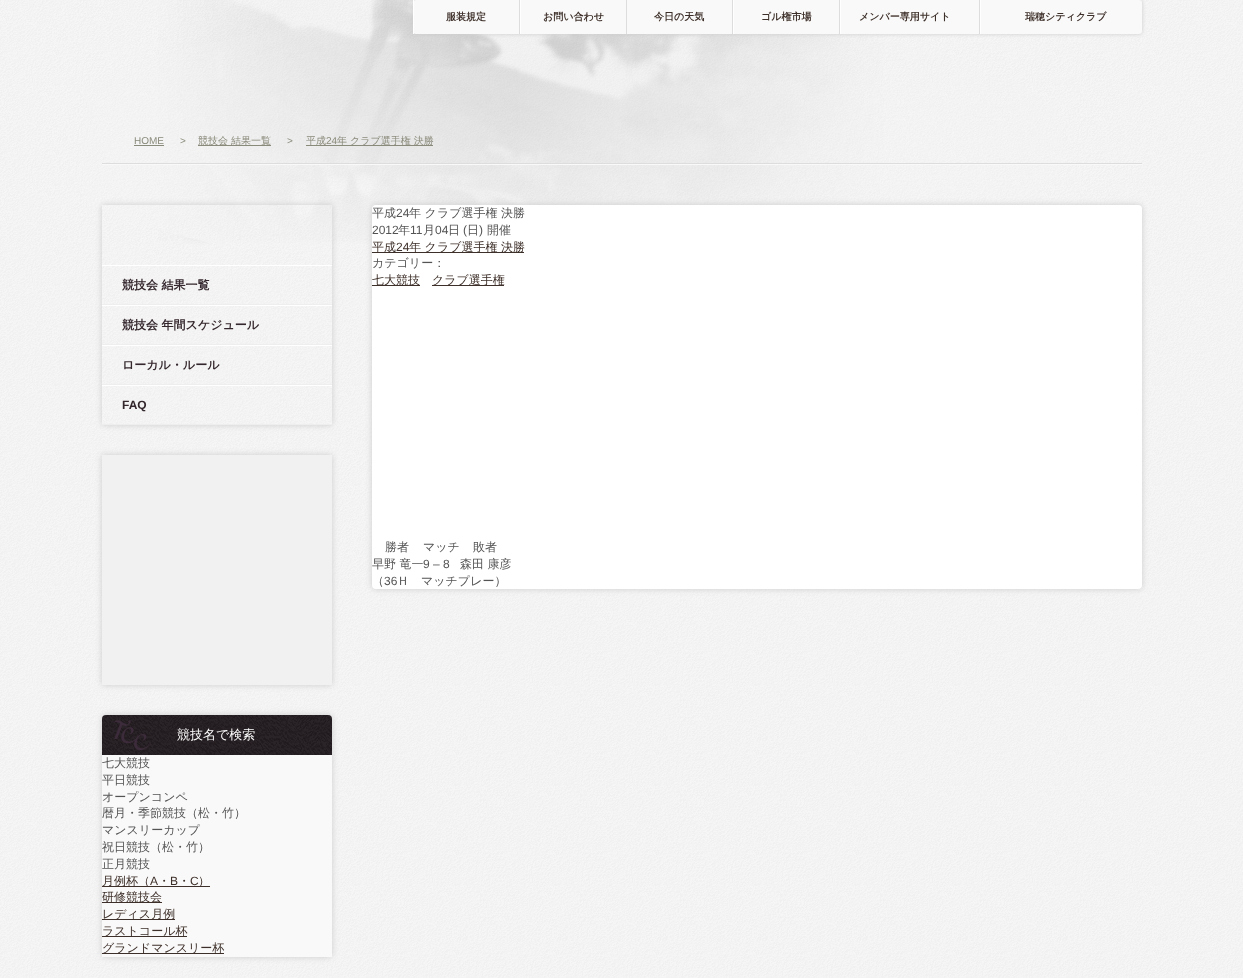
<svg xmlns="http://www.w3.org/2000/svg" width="1243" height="978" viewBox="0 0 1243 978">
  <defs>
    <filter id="blur1" x="-50%" y="-200%" width="200%" height="500%"><feGaussianBlur stdDeviation="2"/></filter>
    <clipPath id="clip1"><path d="M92 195H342V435H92ZM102 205H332V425H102Z" clip-rule="evenodd"/></clipPath>
    <filter id="blur2" x="-50%" y="-200%" width="200%" height="500%"><feGaussianBlur stdDeviation="3"/></filter>
  </defs>
  <rect width="100%" height="100%" fill="#ffffff"/>
  <image x="0" y="0" width="1243" height="978" href="img1.png"/>
  <image x="83" y="0" width="979" height="245" href="img2.png"/>
  <rect x="413" y="0" width="729" height="34" rx="3" fill="#cccccc" filter="url(#blur1)"/>
  <rect x="413" y="0" width="729" height="34" rx="3" fill="#f9f9f9"/>
  <rect x="519" y="0" width="1" height="34" fill="#dddddd"/>
  <rect x="413" y="0" width="1" height="34" fill="#ffffff"/>
  <text x="446" y="20" font-family="WenQuanYi Zen Hei" font-size="10" font-weight="bold" fill="#3d2f29">服装規定</text>
  <rect x="626" y="0" width="1" height="34" fill="#dddddd"/>
  <rect x="520" y="0" width="1" height="34" fill="#ffffff"/>
  <text x="543" y="20" font-family="WenQuanYi Zen Hei" font-size="10" font-weight="bold" fill="#3d2f29">お問い合わせ</text>
  <rect x="732" y="0" width="1" height="34" fill="#dddddd"/>
  <text x="654" y="20" font-family="WenQuanYi Zen Hei" font-size="10" font-weight="bold" fill="#3d2f29">今日の天気</text>
  <rect x="839" y="0" width="1" height="34" fill="#dddddd"/>
  <rect x="733" y="0" width="1" height="34" fill="#ffffff"/>
  <text x="761" y="20" font-family="WenQuanYi Zen Hei" font-size="10" font-weight="bold" fill="#3d2f29">ゴル権市場</text>
  <rect x="979" y="0" width="1" height="34" fill="#dddddd"/>
  <rect x="840" y="0" width="1" height="34" fill="#ffffff"/>
  <text x="859" y="20" font-family="WenQuanYi Zen Hei" font-size="10" font-weight="bold" fill="#3d2f29">メンバー専用サイト</text>
  <rect x="980" y="0" width="1" height="34" fill="#ffffff"/>
  <text x="1025" y="20" font-family="WenQuanYi Zen Hei" font-size="10" font-weight="bold" fill="#3d2f29">瑞穂シティクラブ</text>
  <rect x="102" y="163" width="1040" height="1" fill="#dddddd"/>
  <text x="134" y="144" font-family="Liberation Sans" font-size="10" fill="#8a8a7b">HOME</text>
  <rect x="134" y="145" width="30" height="1" fill="#8a8a7b"/>
  <text x="180" y="144" font-family="Liberation Sans" font-size="10" fill="#8a8a7b">&gt;</text>
  <rect x="198" y="145" width="73" height="1" fill="#8a8a7b"/>
  <text x="198" y="144" font-family="WenQuanYi Zen Hei" font-size="10" font-weight="500" fill="#8a8a7b">競技会 結果一覧</text>
  <text x="287" y="144" font-family="Liberation Sans" font-size="10" fill="#8a8a7b">&gt;</text>
  <rect x="306" y="145" width="127" height="1" fill="#8a8a7b"/>
  <text x="306" y="144" font-family="WenQuanYi Zen Hei" font-size="10" font-weight="500" fill="#8a8a7b">平成</text>
  <text x="326" y="144" font-family="Liberation Sans" font-size="10" fill="#8a8a7b">24</text>
  <text x="337" y="144" font-family="WenQuanYi Zen Hei" font-size="10" font-weight="500" fill="#8a8a7b">年 クラブ選手権 決勝</text>
  <rect x="102" y="164" width="1040" height="1" fill="#f9f9f9"/>
  <g clip-path="url(#clip1)">
    <rect x="102" y="205" width="230" height="220" fill="#cccccc" filter="url(#blur2)"/>
  </g>
  <rect x="102" y="265" width="230" height="1" fill="#ffffff"/>
  <rect x="102" y="304" width="230" height="1" fill="#eeeeee"/>
  <text x="122" y="289" font-family="WenQuanYi Zen Hei" font-size="12" font-weight="bold" fill="#33262c">競技会 結果一覧</text>
  <rect x="102" y="305" width="230" height="1" fill="#ffffff"/>
  <rect x="102" y="344" width="230" height="1" fill="#eeeeee"/>
  <text x="122" y="329" font-family="WenQuanYi Zen Hei" font-size="12" font-weight="bold" fill="#33262c">競技会 年間スケジュール</text>
  <rect x="102" y="345" width="230" height="1" fill="#ffffff"/>
  <rect x="102" y="384" width="230" height="1" fill="#eeeeee"/>
  <text x="122" y="369" font-family="WenQuanYi Zen Hei" font-size="12" font-weight="bold" fill="#33262c">ローカル・ルール</text>
  <rect x="102" y="385" width="230" height="1" fill="#ffffff"/>
  <rect x="102" y="424" width="230" height="1" fill="#eeeeee"/>
  <text x="122" y="409" font-family="Liberation Sans" font-size="12" font-weight="bold" fill="#33262c">FAQ</text>
  <rect x="102" y="455" width="230" height="230" fill="#cccccc" filter="url(#blur2)"/>
  <rect x="102" y="455" width="230" height="230" fill="#f1f1f1"/>
  <rect x="102" y="715" width="230" height="242" rx="4" fill="#cccccc" filter="url(#blur2)"/>
  <path d="M106 715H328C330 715 332 717 332 719V957H102V719C102 717 104 715 106 715Z" fill="#f9f9f9"/>
  <image x="102" y="715" width="230" height="40" href="img3.png"/>
  <text x="177" y="739" font-family="WenQuanYi Zen Hei" font-size="13" font-weight="500" fill="#ffffff">競技名で検索</text>
  <text x="102" y="767" font-family="WenQuanYi Zen Hei" font-size="12" font-weight="500" fill="#545454">七大競技</text>
  <text x="102" y="784" font-family="WenQuanYi Zen Hei" font-size="12" font-weight="500" fill="#545454">平日競技</text>
  <text x="102" y="801" font-family="WenQuanYi Zen Hei" font-size="12" font-weight="500" fill="#545454">オープンコンペ</text>
  <text x="102" y="817" font-family="WenQuanYi Zen Hei" font-size="12" font-weight="500" fill="#545454">暦月・季節競技（松・竹）</text>
  <text x="102" y="834" font-family="WenQuanYi Zen Hei" font-size="12" font-weight="500" fill="#545454">マンスリーカップ</text>
  <text x="102" y="851" font-family="WenQuanYi Zen Hei" font-size="12" font-weight="500" fill="#545454">祝日競技（松・竹）</text>
  <text x="102" y="868" font-family="WenQuanYi Zen Hei" font-size="12" font-weight="500" fill="#545454">正月競技</text>
  <rect x="102" y="886" width="108" height="1" fill="#3d2f29"/>
  <text x="102" y="885" font-family="WenQuanYi Zen Hei" font-size="12" font-weight="500" fill="#3d2f29">月例杯（</text>
  <text x="150" y="885" font-family="Liberation Sans" font-size="12" fill="#3d2f29">A</text>
  <text x="158" y="885" font-family="WenQuanYi Zen Hei" font-size="12" font-weight="500" fill="#3d2f29">・</text>
  <text x="170" y="885" font-family="Liberation Sans" font-size="12" fill="#3d2f29">B</text>
  <text x="178" y="885" font-family="WenQuanYi Zen Hei" font-size="12" font-weight="500" fill="#3d2f29">・</text>
  <text x="190" y="885" font-family="Liberation Sans" font-size="12" fill="#3d2f29">C</text>
  <text x="198" y="885" font-family="WenQuanYi Zen Hei" font-size="12" font-weight="500" fill="#3d2f29">）</text>
  <rect x="102" y="902" width="60" height="1" fill="#3d2f29"/>
  <text x="102" y="901" font-family="WenQuanYi Zen Hei" font-size="12" font-weight="500" fill="#3d2f29">研修競技会</text>
  <rect x="102" y="919" width="73" height="1" fill="#3d2f29"/>
  <text x="102" y="918" font-family="WenQuanYi Zen Hei" font-size="12" font-weight="500" fill="#3d2f29">レディス月例</text>
  <rect x="102" y="936" width="85" height="1" fill="#3d2f29"/>
  <text x="102" y="935" font-family="WenQuanYi Zen Hei" font-size="12" font-weight="500" fill="#3d2f29">ラストコール杯</text>
  <rect x="102" y="953" width="122" height="1" fill="#3d2f29"/>
  <text x="102" y="952" font-family="WenQuanYi Zen Hei" font-size="12" font-weight="500" fill="#3d2f29">グランドマンスリー杯</text>
  <rect x="372" y="205" width="770" height="384" rx="4" fill="#cccccc" filter="url(#blur2)"/>
  <rect x="372" y="205" width="770" height="384" rx="4" fill="#ffffff"/>
  <text x="372" y="217" font-family="WenQuanYi Zen Hei" font-size="12" font-weight="500" fill="#545454">平成</text>
  <text x="396" y="217" font-family="Liberation Sans" font-size="12" fill="#545454">24</text>
  <text x="409" y="217" font-family="WenQuanYi Zen Hei" font-size="12" font-weight="500" fill="#545454">年 クラブ選手権 決勝</text>
  <text x="372" y="234" font-family="Liberation Sans" font-size="12" fill="#545454">2012</text>
  <text x="398" y="234" font-family="WenQuanYi Zen Hei" font-size="12" font-weight="500" fill="#545454">年</text>
  <text x="410" y="234" font-family="Liberation Sans" font-size="12" fill="#545454">11</text>
  <text x="423" y="234" font-family="WenQuanYi Zen Hei" font-size="12" font-weight="500" fill="#545454">月</text>
  <text x="435" y="234" font-family="Liberation Sans" font-size="12" fill="#545454">04</text>
  <text x="448" y="234" font-family="WenQuanYi Zen Hei" font-size="12" font-weight="500" fill="#545454">日</text>
  <text x="463" y="234" font-family="Liberation Sans" font-size="12" fill="#545454">(</text>
  <text x="467" y="234" font-family="WenQuanYi Zen Hei" font-size="12" font-weight="500" fill="#545454">日</text>
  <text x="479" y="234" font-family="Liberation Sans" font-size="12" fill="#545454">)</text>
  <text x="487" y="234" font-family="WenQuanYi Zen Hei" font-size="12" font-weight="500" fill="#545454">開催</text>
  <rect x="372" y="252" width="152" height="1" fill="#3d2f29"/>
  <text x="372" y="251" font-family="WenQuanYi Zen Hei" font-size="12" font-weight="500" fill="#3d2f29">平成</text>
  <text x="396" y="251" font-family="Liberation Sans" font-size="12" fill="#3d2f29">24</text>
  <text x="409" y="251" font-family="WenQuanYi Zen Hei" font-size="12" font-weight="500" fill="#3d2f29">年 クラブ選手権 決勝</text>
  <text x="372" y="267" font-family="WenQuanYi Zen Hei" font-size="12" font-weight="500" fill="#545454">カテゴリー：</text>
  <rect x="372" y="285" width="48" height="1" fill="#3d2f29"/>
  <text x="372" y="284" font-family="WenQuanYi Zen Hei" font-size="12" font-weight="500" fill="#3d2f29">七大競技</text>
  <rect x="432" y="285" width="72" height="1" fill="#3d2f29"/>
  <text x="432" y="284" font-family="WenQuanYi Zen Hei" font-size="12" font-weight="500" fill="#3d2f29">クラブ選手権</text>
  <text x="385" y="551" font-family="WenQuanYi Zen Hei" font-size="12" font-weight="500" fill="#545454">勝者</text>
  <text x="423" y="551" font-family="WenQuanYi Zen Hei" font-size="12" font-weight="500" fill="#545454">マッチ</text>
  <text x="473" y="551" font-family="WenQuanYi Zen Hei" font-size="12" font-weight="500" fill="#545454">敗者</text>
  <text x="372" y="568" font-family="WenQuanYi Zen Hei" font-size="12" font-weight="500" fill="#545454">早野 竜一</text>
  <text x="423" y="568" font-family="Liberation Sans" font-size="12" fill="#545454">9 – 8</text>
  <text x="460" y="568" font-family="WenQuanYi Zen Hei" font-size="12" font-weight="500" fill="#545454">森田 康彦</text>
  <text x="372" y="585" font-family="WenQuanYi Zen Hei" font-size="12" font-weight="500" fill="#545454">（</text>
  <text x="384" y="585" font-family="Liberation Sans" font-size="12" fill="#545454">36</text>
  <text x="397" y="585" font-family="WenQuanYi Zen Hei" font-size="12" font-weight="500" fill="#545454">Ｈ　マッチプレー）</text>
</svg>
